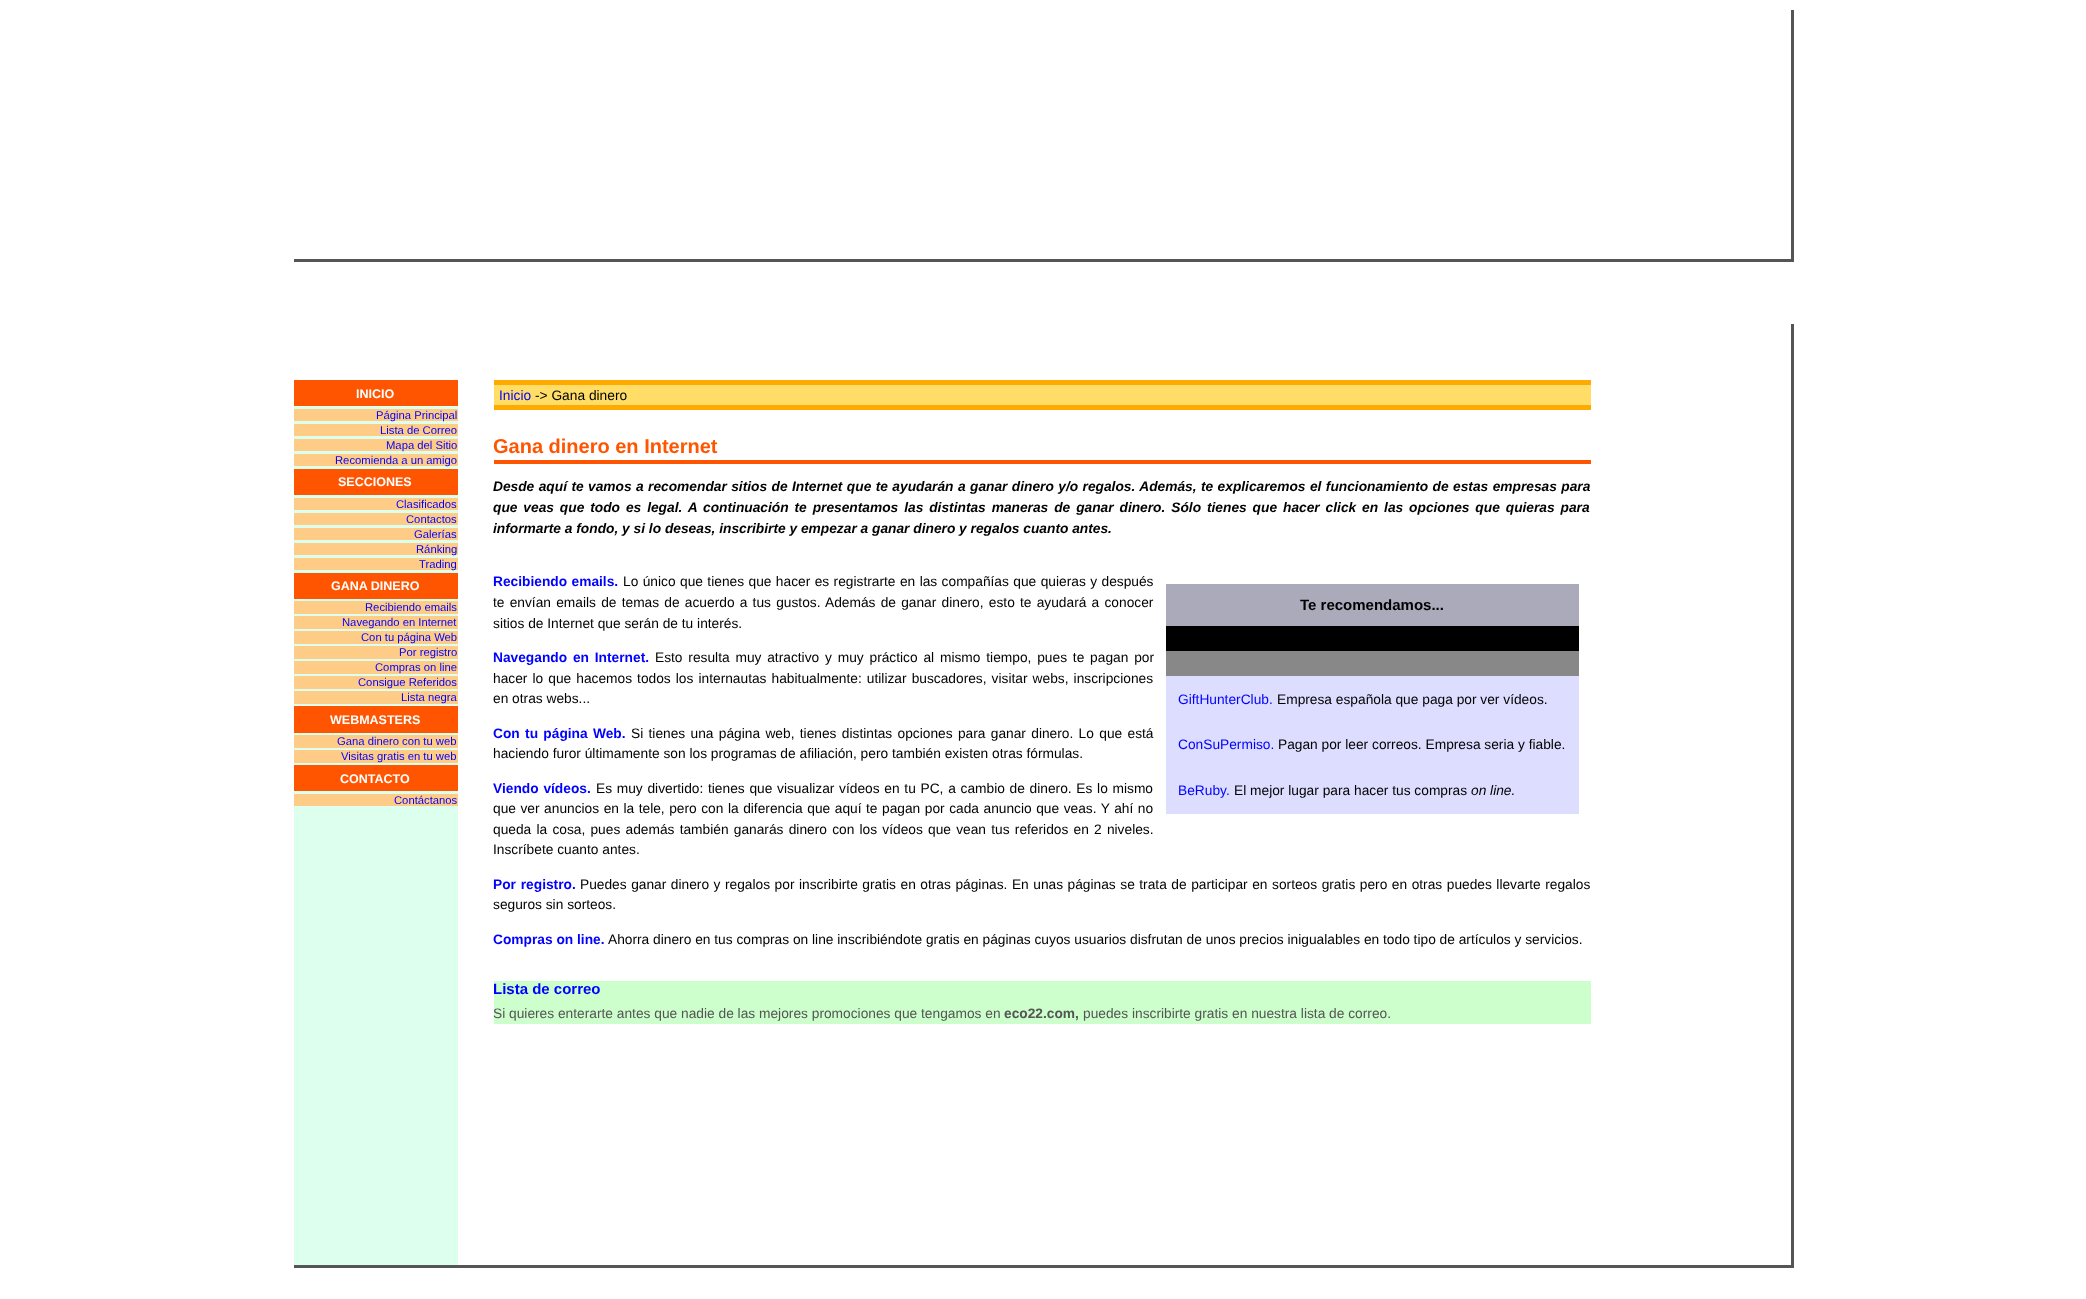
<svg xmlns="http://www.w3.org/2000/svg" width="2086" height="1299" viewBox="0 0 2086 1299">
  <rect width="100%" height="100%" fill="#ffffff"/>
  <rect x="1791" y="10" width="3" height="251" fill="#555555"/>
  <rect x="294" y="259" width="1500" height="3" fill="#555555"/>
  <rect x="1791" y="324" width="3" height="944" fill="#555555"/>
  <rect x="294" y="1265" width="1500" height="3" fill="#555555"/>
  <rect x="294" y="406" width="164" height="859" fill="#ddffee"/>
  <rect x="294" y="380" width="164" height="26" fill="#ff5500"/>
  <text x="356" y="398" font-family="Liberation Sans" font-size="12.5" font-weight="bold" fill="#ffffff">INICIO</text>
  <rect x="294" y="409" width="164" height="12" fill="#ffcc88"/>
  <text x="376" y="419" font-family="Liberation Sans" font-size="11.25" fill="#0000ff">Página Principal</text>
  <rect x="294" y="424" width="164" height="12" fill="#ffcc88"/>
  <text x="380" y="434" font-family="Liberation Sans" font-size="11.25" fill="#0000ff">Lista de Correo</text>
  <rect x="294" y="439" width="164" height="12" fill="#ffcc88"/>
  <text x="386" y="449" font-family="Liberation Sans" font-size="11.25" fill="#0000ff">Mapa del Sitio</text>
  <rect x="294" y="454" width="164" height="12" fill="#ffcc88"/>
  <text x="335" y="464" font-family="Liberation Sans" font-size="11.25" fill="#0000ff">Recomienda a un amigo</text>
  <rect x="294" y="469" width="164" height="26" fill="#ff5500"/>
  <text x="338" y="486" font-family="Liberation Sans" font-size="12.5" font-weight="bold" fill="#ffffff">SECCIONES</text>
  <rect x="294" y="498" width="164" height="12" fill="#ffcc88"/>
  <text x="396" y="508" font-family="Liberation Sans" font-size="11.25" fill="#0000ff">Clasificados</text>
  <rect x="294" y="513" width="164" height="12" fill="#ffcc88"/>
  <text x="406" y="523" font-family="Liberation Sans" font-size="11.25" fill="#0000ff">Contactos</text>
  <rect x="294" y="528" width="164" height="12" fill="#ffcc88"/>
  <text x="414" y="538" font-family="Liberation Sans" font-size="11.25" fill="#0000ff">Galerías</text>
  <rect x="294" y="543" width="164" height="12" fill="#ffcc88"/>
  <text x="416" y="553" font-family="Liberation Sans" font-size="11.25" fill="#0000ff">Ránking</text>
  <rect x="294" y="558" width="164" height="12" fill="#ffcc88"/>
  <text x="419" y="568" font-family="Liberation Sans" font-size="11.25" fill="#0000ff">Trading</text>
  <rect x="294" y="573" width="164" height="26" fill="#ff5500"/>
  <text x="331" y="590" font-family="Liberation Sans" font-size="12.5" font-weight="bold" fill="#ffffff">GANA DINERO</text>
  <rect x="294" y="601" width="164" height="13" fill="#ffcc88"/>
  <text x="365" y="611" font-family="Liberation Sans" font-size="11.25" fill="#0000ff">Recibiendo emails</text>
  <rect x="294" y="616" width="164" height="13" fill="#ffcc88"/>
  <text x="342" y="626" font-family="Liberation Sans" font-size="11.25" fill="#0000ff">Navegando en Internet</text>
  <rect x="294" y="631" width="164" height="13" fill="#ffcc88"/>
  <text x="361" y="641" font-family="Liberation Sans" font-size="11.25" fill="#0000ff">Con tu página Web</text>
  <rect x="294" y="646" width="164" height="13" fill="#ffcc88"/>
  <text x="399" y="656" font-family="Liberation Sans" font-size="11.25" fill="#0000ff">Por registro</text>
  <rect x="294" y="661" width="164" height="13" fill="#ffcc88"/>
  <text x="375" y="671" font-family="Liberation Sans" font-size="11.25" fill="#0000ff">Compras on line</text>
  <rect x="294" y="676" width="164" height="13" fill="#ffcc88"/>
  <text x="358" y="686" font-family="Liberation Sans" font-size="11.25" fill="#0000ff">Consigue Referidos</text>
  <rect x="294" y="691" width="164" height="13" fill="#ffcc88"/>
  <text x="401" y="701" font-family="Liberation Sans" font-size="11.25" fill="#0000ff">Lista negra</text>
  <rect x="294" y="706" width="164" height="27" fill="#ff5500"/>
  <text x="330" y="724" font-family="Liberation Sans" font-size="12.5" font-weight="bold" fill="#ffffff">WEBMASTERS</text>
  <rect x="294" y="735" width="164" height="13" fill="#ffcc88"/>
  <text x="337" y="745" font-family="Liberation Sans" font-size="11.25" fill="#0000ff">Gana dinero con tu web</text>
  <rect x="294" y="750" width="164" height="13" fill="#ffcc88"/>
  <text x="341" y="760" font-family="Liberation Sans" font-size="11.25" fill="#0000ff">Visitas gratis en tu web</text>
  <rect x="294" y="765" width="164" height="26" fill="#ff5500"/>
  <text x="340" y="783" font-family="Liberation Sans" font-size="12.5" font-weight="bold" fill="#ffffff">CONTACTO</text>
  <rect x="294" y="794" width="164" height="12" fill="#ffcc88"/>
  <text x="394" y="804" font-family="Liberation Sans" font-size="11.25" fill="#0000ff">Contáctanos</text>
  <rect x="494" y="385" width="1097" height="20" fill="#ffdd66"/>
  <rect x="494" y="380" width="1097" height="5" fill="#ffaa00"/>
  <rect x="494" y="405" width="1097" height="5" fill="#ffaa00"/>
  <text x="499" y="400" font-family="Liberation Sans" font-size="13.75" fill="#0000ff">Inicio</text>
  <text x="535" y="400" font-family="Liberation Sans" font-size="13.75" fill="#000000">-&gt; Gana dinero</text>
  <rect x="494" y="460" width="1097" height="4" fill="#ff5500"/>
  <text x="493" y="453" font-family="Liberation Sans" font-size="20" font-weight="bold" fill="#ff5500">Gana dinero en Internet</text>
  <text x="493" y="491" word-spacing="0.6" font-family="Liberation Sans" font-size="13.75" font-weight="bold" font-style="italic" fill="#000000">Desde aquí te vamos a recomendar sitios de Internet que te ayudarán a ganar dinero y/o regalos. Además, te explicaremos el funcionamiento de estas empresas para</text>
  <text x="493" y="512" word-spacing="2.1" font-family="Liberation Sans" font-size="13.75" font-weight="bold" font-style="italic" fill="#000000">que veas que todo es legal. A continuación te presentamos las distintas maneras de ganar dinero. Sólo tienes que hacer click en las opciones que quieras para</text>
  <text x="493" y="533" font-family="Liberation Sans" font-size="13.75" font-weight="bold" font-style="italic" fill="#000000">informarte a fondo, y si lo deseas, inscribirte y empezar a ganar dinero y regalos cuanto antes.</text>
  <text x="493" y="586" word-spacing="0.6" font-family="Liberation Sans" font-size="13.75" font-weight="bold" fill="#0000ff">Recibiendo emails.</text>
  <text x="623" y="586" word-spacing="0.6" font-family="Liberation Sans" font-size="13.75" fill="#000000">Lo único que tienes que hacer es registrarte en las compañías que quieras y después</text>
  <text x="493" y="607" word-spacing="1.4" font-family="Liberation Sans" font-size="13.75" fill="#000000">te envían emails de temas de acuerdo a tus gustos. Además de ganar dinero, esto te ayudará a conocer</text>
  <text x="493" y="628" font-family="Liberation Sans" font-size="13.75" fill="#000000">sitios de Internet que serán de tu interés.</text>
  <rect x="1166" y="676" width="413" height="138" fill="#ddddff"/>
  <rect x="1166" y="584" width="413" height="42" fill="#aaaabb"/>
  <text x="1300" y="610" font-family="Liberation Sans" font-size="15" font-weight="bold" fill="#000000">Te recomendamos...</text>
  <rect x="1166" y="626" width="413" height="25" fill="#000000"/>
  <rect x="1166" y="651" width="413" height="25" fill="#888888"/>
  <text x="1178" y="704" font-family="Liberation Sans" font-size="13.75" fill="#0000ff">GiftHunterClub.</text>
  <text x="1277" y="704" font-family="Liberation Sans" font-size="13.75" fill="#000000">Empresa española que paga por ver vídeos.</text>
  <text x="1178" y="749" font-family="Liberation Sans" font-size="13.75" fill="#0000ff">ConSuPermiso.</text>
  <text x="1278" y="749" font-family="Liberation Sans" font-size="13.75" fill="#000000">Pagan por leer correos. Empresa seria y fiable.</text>
  <text x="1178" y="795" font-family="Liberation Sans" font-size="13.75" fill="#0000ff">BeRuby.</text>
  <text x="1234" y="795" font-family="Liberation Sans" font-size="13.75" fill="#000000">El mejor lugar para hacer tus compras</text>
  <text x="1471" y="795" font-family="Liberation Sans" font-size="13.75" font-style="italic" fill="#000000">on line.</text>
  <text x="493" y="662" word-spacing="2" font-family="Liberation Sans" font-size="13.75" font-weight="bold" fill="#0000ff">Navegando en Internet.</text>
  <text x="655" y="662" word-spacing="2" font-family="Liberation Sans" font-size="13.75" fill="#000000">Esto resulta muy atractivo y muy práctico al mismo tiempo, pues te pagan por</text>
  <text x="493" y="683" word-spacing="1.25" font-family="Liberation Sans" font-size="13.75" fill="#000000">hacer lo que hacemos todos los internautas habitualmente: utilizar buscadores, visitar webs, inscripciones</text>
  <text x="493" y="703" font-family="Liberation Sans" font-size="13.75" fill="#000000">en otras webs...</text>
  <text x="493" y="738" word-spacing="1.5" font-family="Liberation Sans" font-size="13.75" font-weight="bold" fill="#0000ff">Con tu página Web.</text>
  <text x="631" y="738" word-spacing="1.5" font-family="Liberation Sans" font-size="13.75" fill="#000000">Si tienes una página web, tienes distintas opciones para ganar dinero. Lo que está</text>
  <text x="493" y="758" font-family="Liberation Sans" font-size="13.75" fill="#000000">haciendo furor últimamente son los programas de afiliación, pero también existen otras fórmulas.</text>
  <text x="493" y="793" word-spacing="1" font-family="Liberation Sans" font-size="13.75" font-weight="bold" fill="#0000ff">Viendo vídeos.</text>
  <text x="596" y="793" word-spacing="0.9" font-family="Liberation Sans" font-size="13.75" fill="#000000">Es muy divertido: tienes que visualizar vídeos en tu PC, a cambio de dinero. Es lo mismo</text>
  <text x="493" y="813" word-spacing="0.7" font-family="Liberation Sans" font-size="13.75" fill="#000000">que ver anuncios en la tele, pero con la diferencia que aquí te pagan por cada anuncio que veas. Y ahí no</text>
  <text x="493" y="834" word-spacing="1.4" font-family="Liberation Sans" font-size="13.75" fill="#000000">queda la cosa, pues además también ganarás dinero con los vídeos que vean tus referidos en 2 niveles.</text>
  <text x="493" y="854" font-family="Liberation Sans" font-size="13.75" fill="#000000">Inscríbete cuanto antes.</text>
  <text x="493" y="889" word-spacing="1" font-family="Liberation Sans" font-size="13.75" font-weight="bold" fill="#0000ff">Por registro.</text>
  <text x="580" y="889" word-spacing="0.7" font-family="Liberation Sans" font-size="13.75" fill="#000000">Puedes ganar dinero y regalos por inscribirte gratis en otras páginas. En unas páginas se trata de participar en sorteos gratis pero en otras puedes llevarte regalos</text>
  <text x="493" y="909" font-family="Liberation Sans" font-size="13.75" fill="#000000">seguros sin sorteos.</text>
  <text x="493" y="944" font-family="Liberation Sans" font-size="13.75" font-weight="bold" fill="#0000ff">Compras on line.</text>
  <text x="608" y="944" font-family="Liberation Sans" font-size="13.75" fill="#000000">Ahorra dinero en tus compras on line inscribiéndote gratis en páginas cuyos usuarios disfrutan de unos precios inigualables en todo tipo de artículos y servicios.</text>
  <rect x="494" y="981" width="1097" height="43" fill="#ccffcc"/>
  <text x="493" y="994" font-family="Liberation Sans" font-size="15" font-weight="bold" fill="#0000ff">Lista de correo</text>
  <text x="493" y="1018" font-family="Liberation Sans" font-size="13.75" fill="#555555">Si quieres enterarte antes que nadie de las mejores promociones que tengamos en</text>
  <text x="1004" y="1018" font-family="Liberation Sans" font-size="13.75" font-weight="bold" fill="#555555">eco22.com,</text>
  <text x="1083" y="1018" font-family="Liberation Sans" font-size="13.75" fill="#555555">puedes inscribirte gratis en nuestra lista de correo.</text>
</svg>
